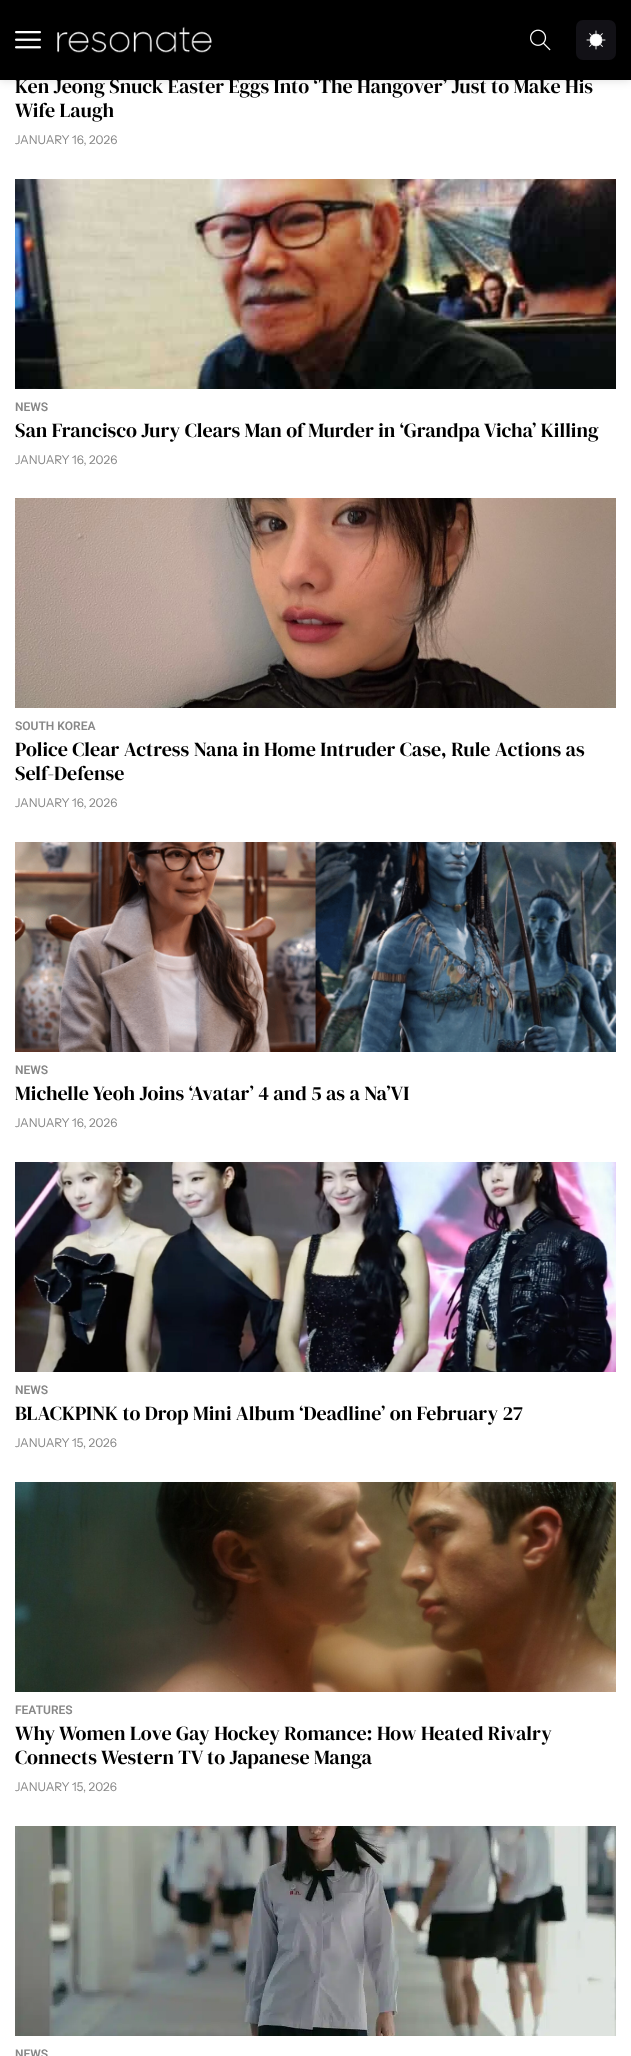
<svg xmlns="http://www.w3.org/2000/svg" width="631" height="2056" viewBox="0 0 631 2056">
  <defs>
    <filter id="blur1" x="-50%" y="-200%" width="200%" height="500%"><feGaussianBlur stdDeviation="5"/></filter>
  </defs>
  <rect width="100%" height="100%" fill="#ffffff"/>
  <rect x="0" y="0" width="631" height="80" fill="#000000" fill-opacity="0.15" filter="url(#blur1)"/>
  <rect x="0" y="0" width="631" height="80" fill="#000000"/>
  <image x="15" y="31" width="26" height="18" href="img1.png"/>
  <image x="57" y="26" width="155" height="27" href="img2.png"/>
  <image x="530" y="29" width="21" height="22" href="img3.png"/>
  <rect x="576" y="20" width="40" height="40" rx="7" fill="#121116"/>
  <image x="586" y="30" width="20" height="20" href="img4.png"/>
  <text x="15" y="93" font-family="DM Serif Display" font-size="20" fill="#000000">Ken Jeong Snuck Easter Eggs Into ‘The Hangover’ Just to Make His</text>
  <text x="15" y="117" font-family="DM Serif Display" font-size="20" fill="#000000">Wife Laugh</text>
  <text x="15" y="144" font-family="Instrument Sans" font-size="12" fill="#888888">JANUARY 16, 2026</text>
  <image x="15" y="179" width="601" height="210" href="img5.png"/>
  <text x="15" y="411" font-family="Roboto" font-size="12" font-weight="600" fill="#888888">NEWS</text>
  <text x="15" y="437" font-family="DM Serif Display" font-size="20" fill="#000000">San Francisco Jury Clears Man of Murder in ‘Grandpa Vicha’ Killing</text>
  <text x="15" y="464" font-family="Instrument Sans" font-size="12" fill="#888888">JANUARY 16, 2026</text>
  <image x="15" y="498" width="601" height="210" href="img6.png"/>
  <text x="15" y="730" font-family="Roboto" font-size="12" font-weight="600" fill="#888888">SOUTH KOREA</text>
  <text x="15" y="756" font-family="DM Serif Display" font-size="20" fill="#000000">Police Clear Actress Nana in Home Intruder Case, Rule Actions as</text>
  <text x="15" y="780" font-family="DM Serif Display" font-size="20" fill="#000000">Self-Defense</text>
  <text x="15" y="807" font-family="Instrument Sans" font-size="12" fill="#888888">JANUARY 16, 2026</text>
  <image x="15" y="842" width="601" height="210" href="img7.png"/>
  <text x="15" y="1074" font-family="Roboto" font-size="12" font-weight="600" fill="#888888">NEWS</text>
  <text x="15" y="1100" font-family="DM Serif Display" font-size="20" fill="#000000">Michelle Yeoh Joins ‘Avatar’ 4 and 5 as a Na’VI</text>
  <text x="15" y="1127" font-family="Instrument Sans" font-size="12" fill="#888888">JANUARY 16, 2026</text>
  <image x="15" y="1162" width="601" height="210" href="img8.png"/>
  <text x="15" y="1394" font-family="Roboto" font-size="12" font-weight="600" fill="#888888">NEWS</text>
  <text x="15" y="1420" font-family="DM Serif Display" font-size="20" fill="#000000">BLACKPINK to Drop Mini Album ‘Deadline’ on February 27</text>
  <text x="15" y="1447" font-family="Instrument Sans" font-size="12" fill="#888888">JANUARY 15, 2026</text>
  <image x="15" y="1482" width="601" height="210" href="img9.png"/>
  <text x="15" y="1714" font-family="Roboto" font-size="12" font-weight="600" fill="#888888">FEATURES</text>
  <text x="15" y="1740" font-family="DM Serif Display" font-size="20" fill="#000000">Why Women Love Gay Hockey Romance: How Heated Rivalry</text>
  <text x="15" y="1764" font-family="DM Serif Display" font-size="20" fill="#000000">Connects Western TV to Japanese Manga</text>
  <text x="15" y="1791" font-family="Instrument Sans" font-size="12" fill="#888888">JANUARY 15, 2026</text>
  <image x="15" y="1826" width="601" height="210" href="img10.png"/>
  <text x="15" y="2058" font-family="Roboto" font-size="12" font-weight="600" fill="#888888">NEWS</text>
</svg>
